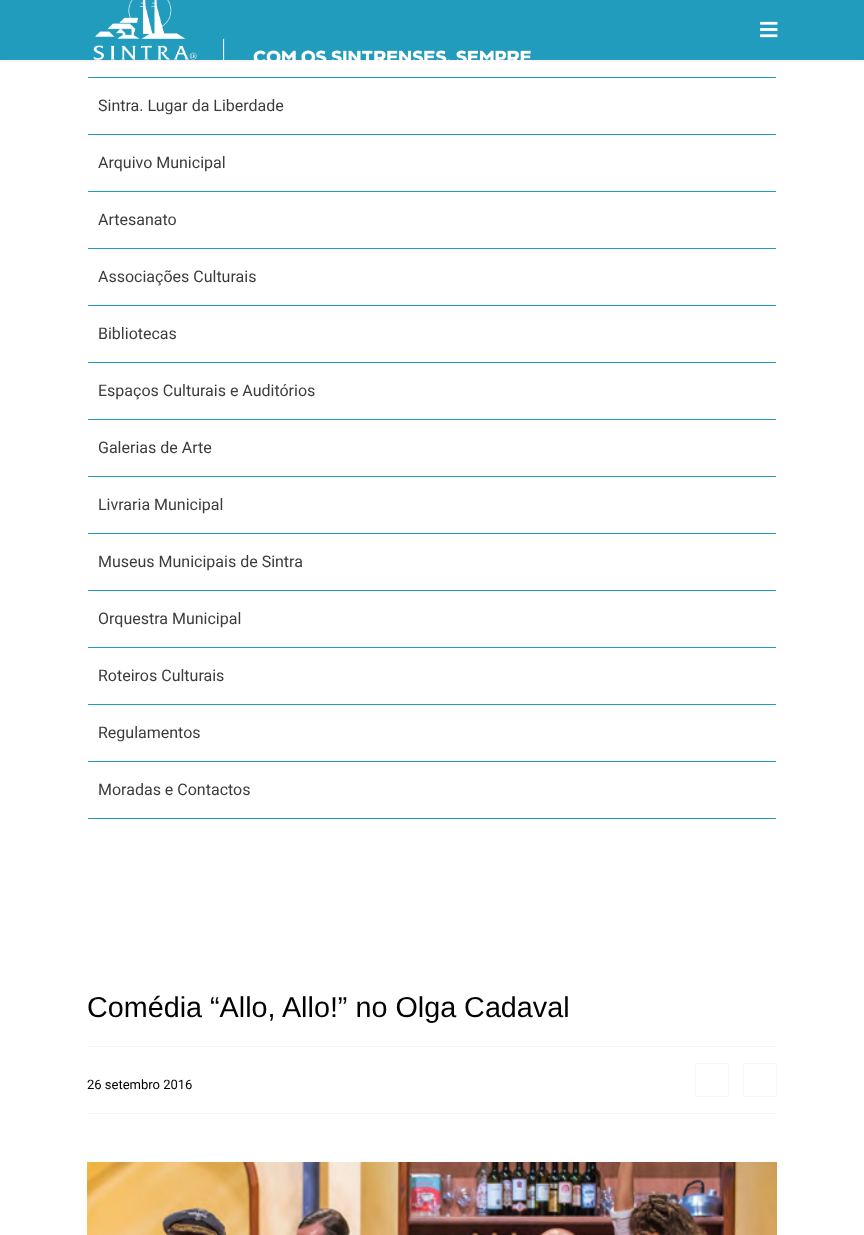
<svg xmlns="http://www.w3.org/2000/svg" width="864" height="1235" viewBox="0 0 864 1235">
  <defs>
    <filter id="blur1" x="-50%" y="-200%" width="200%" height="500%"><feGaussianBlur stdDeviation="2"/></filter>
  </defs>
  <rect width="100%" height="100%" fill="#ffffff"/>
  <rect x="0" y="0" width="864" height="60" fill="#000000" fill-opacity="0.1" filter="url(#blur1)"/>
  <rect x="0" y="0" width="864" height="60" fill="#219cbc"/>
  <image x="93" y="0" width="438" height="62" href="img1.png"/>
  <image x="760" y="21" width="18" height="17" href="img2.png"/>
  <rect x="88" y="77" width="688" height="1" fill="#219cbc"/>
  <rect x="88" y="134" width="688" height="1" fill="#219cbc"/>
  <text x="98" y="111" font-family="Roboto" font-size="16" fill="#3c3c3c">Sintra. Lugar da Liberdade</text>
  <rect x="88" y="191" width="688" height="1" fill="#219cbc"/>
  <text x="98" y="168" font-family="Roboto" font-size="16" fill="#3c3c3c">Arquivo Municipal</text>
  <rect x="88" y="248" width="688" height="1" fill="#219cbc"/>
  <text x="98" y="225" font-family="Roboto" font-size="16" fill="#3c3c3c">Artesanato</text>
  <rect x="88" y="305" width="688" height="1" fill="#219cbc"/>
  <text x="98" y="282" font-family="Roboto" font-size="16" fill="#3c3c3c">Associações Culturais</text>
  <rect x="88" y="362" width="688" height="1" fill="#219cbc"/>
  <text x="98" y="339" font-family="Roboto" font-size="16" fill="#3c3c3c">Bibliotecas</text>
  <rect x="88" y="419" width="688" height="1" fill="#219cbc"/>
  <text x="98" y="396" font-family="Roboto" font-size="16" fill="#3c3c3c">Espaços Culturais e Auditórios</text>
  <rect x="88" y="476" width="688" height="1" fill="#219cbc"/>
  <text x="98" y="453" font-family="Roboto" font-size="16" fill="#3c3c3c">Galerias de Arte</text>
  <rect x="88" y="533" width="688" height="1" fill="#219cbc"/>
  <text x="98" y="510" font-family="Roboto" font-size="16" fill="#3c3c3c">Livraria Municipal</text>
  <rect x="88" y="590" width="688" height="1" fill="#219cbc"/>
  <text x="98" y="567" font-family="Roboto" font-size="16" fill="#3c3c3c">Museus Municipais de Sintra</text>
  <rect x="88" y="647" width="688" height="1" fill="#219cbc"/>
  <text x="98" y="624" font-family="Roboto" font-size="16" fill="#3c3c3c">Orquestra Municipal</text>
  <rect x="88" y="704" width="688" height="1" fill="#219cbc"/>
  <text x="98" y="681" font-family="Roboto" font-size="16" fill="#3c3c3c">Roteiros Culturais</text>
  <rect x="88" y="761" width="688" height="1" fill="#219cbc"/>
  <text x="98" y="738" font-family="Roboto" font-size="16" fill="#3c3c3c">Regulamentos</text>
  <rect x="88" y="818" width="688" height="1" fill="#219cbc"/>
  <text x="98" y="795" font-family="Roboto" font-size="16" fill="#3c3c3c">Moradas e Contactos</text>
  <text x="87" y="1017" font-family="Liberation Sans" font-size="28.75" fill="#000000">Comédia “Allo, Allo!” no Olga Cadaval</text>
  <rect x="87" y="1046" width="690" height="1" fill="#f5f5f5"/>
  <rect x="87" y="1113" width="690" height="1" fill="#f5f5f5"/>
  <rect x="695.5" y="1063.5" width="33" height="33" fill="none" stroke="#f5f5f5"/>
  <rect x="743.5" y="1063.5" width="33" height="33" fill="none" stroke="#f5f5f5"/>
  <text x="87" y="1089" font-family="Roboto" font-size="13" fill="#000000">26 setembro 2016</text>
  <image x="87" y="1162" width="690" height="73" href="img3.png"/>
</svg>
